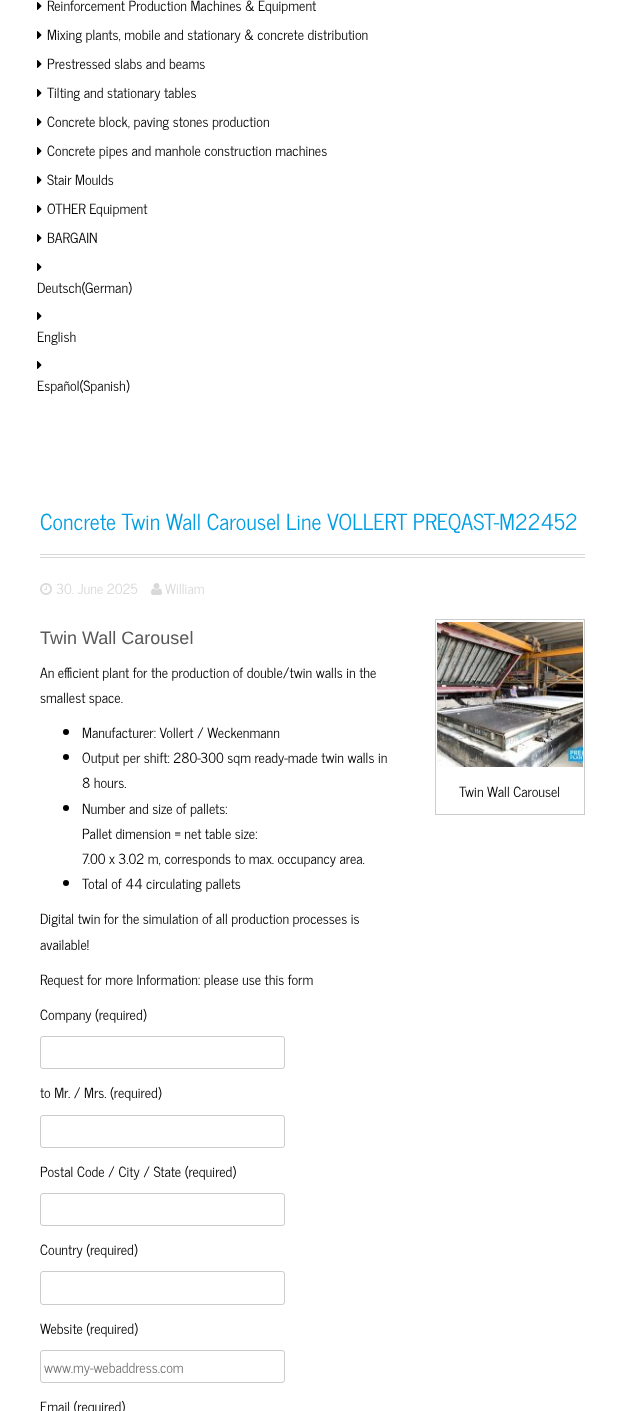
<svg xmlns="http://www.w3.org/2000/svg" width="625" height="1411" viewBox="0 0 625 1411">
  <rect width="100%" height="100%" fill="#ffffff"/>
  <image x="37" y="2" width="5" height="8" href="img1.png"/>
  <text x="47" y="11" font-family="News Cycle" font-size="14" fill="#000000">Reinforcement Production Machines &amp; Equipment</text>
  <image x="37" y="31" width="5" height="8" href="img1.png"/>
  <text x="47" y="40" font-family="News Cycle" font-size="14" fill="#000000">Mixing plants, mobile and stationary &amp; concrete distribution</text>
  <image x="37" y="60" width="5" height="8" href="img1.png"/>
  <text x="47" y="69" font-family="News Cycle" font-size="14" fill="#000000">Prestressed slabs and beams</text>
  <image x="37" y="89" width="5" height="8" href="img1.png"/>
  <text x="47" y="98" font-family="News Cycle" font-size="14" fill="#000000">Tilting and stationary tables</text>
  <image x="37" y="118" width="5" height="8" href="img1.png"/>
  <text x="47" y="127" font-family="News Cycle" font-size="14" fill="#000000">Concrete block, paving stones production</text>
  <image x="37" y="147" width="5" height="8" href="img1.png"/>
  <text x="47" y="156" font-family="News Cycle" font-size="14" fill="#000000">Concrete pipes and manhole construction machines</text>
  <image x="37" y="176" width="5" height="8" href="img1.png"/>
  <text x="47" y="185" font-family="News Cycle" font-size="14" fill="#000000">Stair Moulds</text>
  <image x="37" y="205" width="5" height="8" href="img1.png"/>
  <text x="47" y="214" font-family="News Cycle" font-size="14" fill="#000000">OTHER Equipment</text>
  <image x="37" y="234" width="5" height="8" href="img1.png"/>
  <text x="47" y="243" font-family="News Cycle" font-size="14" fill="#000000">BARGAIN</text>
  <image x="37" y="263" width="5" height="8" href="img1.png"/>
  <text x="37" y="293" font-family="News Cycle" font-size="14" fill="#000000">Deutsch(German)</text>
  <image x="37" y="312" width="5" height="8" href="img1.png"/>
  <text x="37" y="342" font-family="News Cycle" font-size="14" fill="#000000">English</text>
  <image x="37" y="361" width="5" height="8" href="img1.png"/>
  <text x="37" y="391" font-family="News Cycle" font-size="14" fill="#000000">Español(Spanish)</text>
  <rect x="40" y="554" width="545" height="1" fill="#d9d9d9"/>
  <rect x="40" y="557" width="545" height="1" fill="#d9d9d9"/>
  <text x="40" y="530" font-family="News Cycle" font-size="22" fill="#009fe3">Concrete Twin Wall Carousel Line VOLLERT PREQAST-M22452</text>
  <image x="40" y="583" width="12" height="12" href="img2.png"/>
  <text x="56" y="594" font-family="News Cycle" font-size="14" fill="#d9d9d9">30. June 2025</text>
  <image x="151" y="583" width="11" height="12" href="img3.png"/>
  <text x="165" y="594" font-family="News Cycle" font-size="14" fill="#d9d9d9">William</text>
  <text x="40" y="644" font-family="Liberation Sans" font-size="18" fill="#595959">Twin Wall Carousel</text>
  <text x="40" y="678" font-family="News Cycle" font-size="14" fill="#000000">An efficient plant for the production of double/twin walls in the</text>
  <text x="40" y="703" font-family="News Cycle" font-size="14" fill="#000000">smallest space.</text>
  <circle cx="66" cy="732" r="3" fill="#000000"/>
  <text x="82" y="738" font-family="News Cycle" font-size="14" fill="#000000">Manufacturer: Vollert / Weckenmann</text>
  <circle cx="66" cy="757" r="3" fill="#000000"/>
  <text x="82" y="763" font-family="News Cycle" font-size="14" fill="#000000">Output per shift: 280-300 sqm ready-made twin walls in</text>
  <text x="82" y="788" font-family="News Cycle" font-size="14" fill="#000000">8 hours.</text>
  <circle cx="66" cy="808" r="3" fill="#000000"/>
  <text x="82" y="814" font-family="News Cycle" font-size="14" fill="#000000">Number and size of pallets:</text>
  <text x="82" y="839" font-family="News Cycle" font-size="14" fill="#000000">Pallet dimension = net table size:</text>
  <text x="82" y="864" font-family="News Cycle" font-size="14" fill="#000000">7.00 x 3.02 m, corresponds to max. occupancy area.</text>
  <circle cx="66" cy="883" r="3" fill="#000000"/>
  <text x="82" y="889" font-family="News Cycle" font-size="14" fill="#000000">Total of 44 circulating pallets</text>
  <text x="40" y="924" font-family="News Cycle" font-size="14" fill="#000000">Digital twin for the simulation of all production processes is</text>
  <text x="40" y="950" font-family="News Cycle" font-size="14" fill="#000000">available!</text>
  <rect x="435.5" y="619.5" width="149" height="195" fill="none" stroke="#cccccc"/>
  <image x="437" y="622" width="146" height="145" href="img4.png"/>
  <text x="459" y="797" font-family="News Cycle" font-size="14" fill="#000000">Twin Wall Carousel</text>
  <text x="40" y="985" font-family="News Cycle" font-size="14" fill="#000000">Request for more Information: please use this form</text>
  <text x="40" y="1020" font-family="News Cycle" font-size="14" fill="#000000">Company (required)</text>
  <rect x="40.5" y="1036.5" width="244" height="32" rx="2.5" fill="none" stroke="#cccccc"/>
  <text x="40" y="1098" font-family="News Cycle" font-size="14" fill="#000000">to Mr. / Mrs. (required)</text>
  <rect x="40.5" y="1115.5" width="244" height="32" rx="2.5" fill="none" stroke="#cccccc"/>
  <text x="40" y="1177" font-family="News Cycle" font-size="14" fill="#000000">Postal Code / City / State (required)</text>
  <rect x="40.5" y="1193.5" width="244" height="32" rx="2.5" fill="none" stroke="#cccccc"/>
  <text x="40" y="1255" font-family="News Cycle" font-size="14" fill="#000000">Country (required)</text>
  <rect x="40.5" y="1271.5" width="244" height="33" rx="2.5" fill="none" stroke="#cccccc"/>
  <text x="40" y="1334" font-family="News Cycle" font-size="14" fill="#000000">Website (required)</text>
  <rect x="40.5" y="1350.5" width="244" height="32" rx="2.5" fill="none" stroke="#cccccc"/>
  <text x="44" y="1373" font-family="News Cycle" font-size="14" fill="#757575">www.my-webaddress.com</text>
  <text x="40" y="1412" font-family="News Cycle" font-size="14" fill="#000000">Email (required)</text>
</svg>
